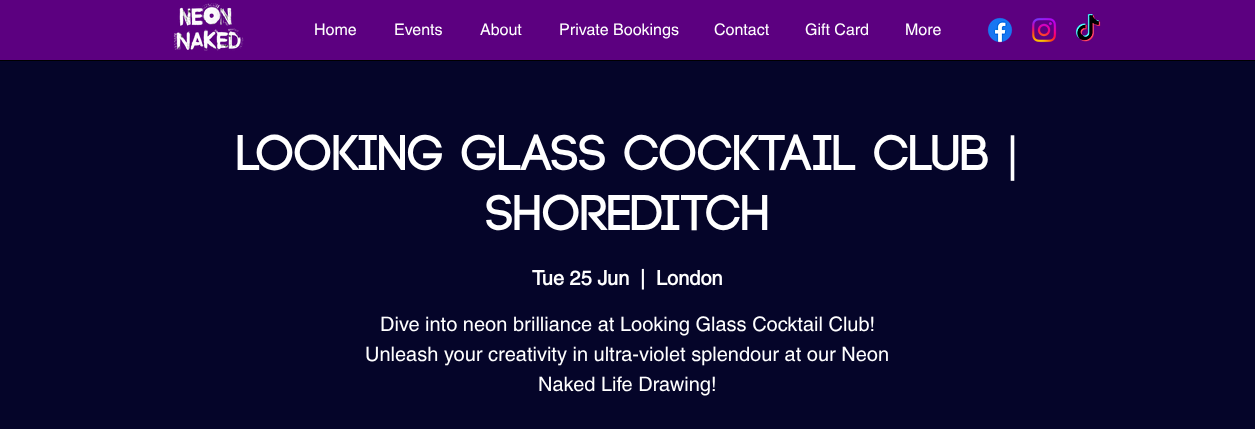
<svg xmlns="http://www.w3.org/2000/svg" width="1255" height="429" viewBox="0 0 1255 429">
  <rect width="100%" height="100%" fill="#000000"/>
  <rect x="0" y="0" width="1255" height="60" fill="#5c0080"/>
  <image x="173" y="3" width="71" height="48" href="img1.png"/>
  <text x="314" y="35" font-family="helvetica" font-size="16" fill="#ffffff">Home</text>
  <text x="394" y="35" font-family="helvetica" font-size="16" fill="#ffffff">Events</text>
  <text x="480" y="35" font-family="helvetica" font-size="16" fill="#ffffff">About</text>
  <text x="559" y="35" font-family="helvetica" font-size="16" fill="#ffffff">Private Bookings</text>
  <text x="714" y="35" font-family="helvetica" font-size="16" fill="#ffffff">Contact</text>
  <text x="805" y="35" font-family="helvetica" font-size="16" fill="#ffffff">Gift Card</text>
  <text x="905" y="35" font-family="helvetica" font-size="16" fill="#ffffff">More</text>
  <image x="987" y="17" width="26" height="26" href="img2.png"/>
  <image x="1031" y="17" width="26" height="26" href="img3.png"/>
  <image x="1075" y="14" width="26" height="28" href="img4.png"/>
  <rect x="0" y="61" width="1255" height="368" fill="#050529"/>
  <text x="237" y="170" font-family="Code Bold" font-size="50" font-weight="bold" fill="#ffffff">LOOKING GLASS COCKTAIL CLUB</text>
  <text x="1007" y="170" font-family="Liberation Serif" font-size="50" font-weight="bold" fill="#ffffff">|</text>
  <text x="486" y="230" font-family="Code Bold" font-size="50" font-weight="bold" fill="#ffffff">SHOREDITCH</text>
  <text x="532" y="285" font-family="helvetica" font-size="20" font-weight="bold" fill="#ffffff">Tue 25 Jun</text>
  <text x="640" y="285" font-family="helvetica" font-size="20" font-weight="bold" fill="#ffffff">|</text>
  <text x="656" y="285" font-family="helvetica" font-size="20" font-weight="bold" fill="#ffffff">London</text>
  <text x="380" y="331" font-family="helvetica" font-size="20" fill="#ffffff">Dive into neon brilliance at Looking Glass Cocktail Club!</text>
  <text x="365" y="361" font-family="helvetica" font-size="20" fill="#ffffff">Unleash your creativity in ultra-violet splendour at our Neon</text>
  <text x="538" y="391" font-family="helvetica" font-size="20" fill="#ffffff">Naked Life Drawing!</text>
</svg>
